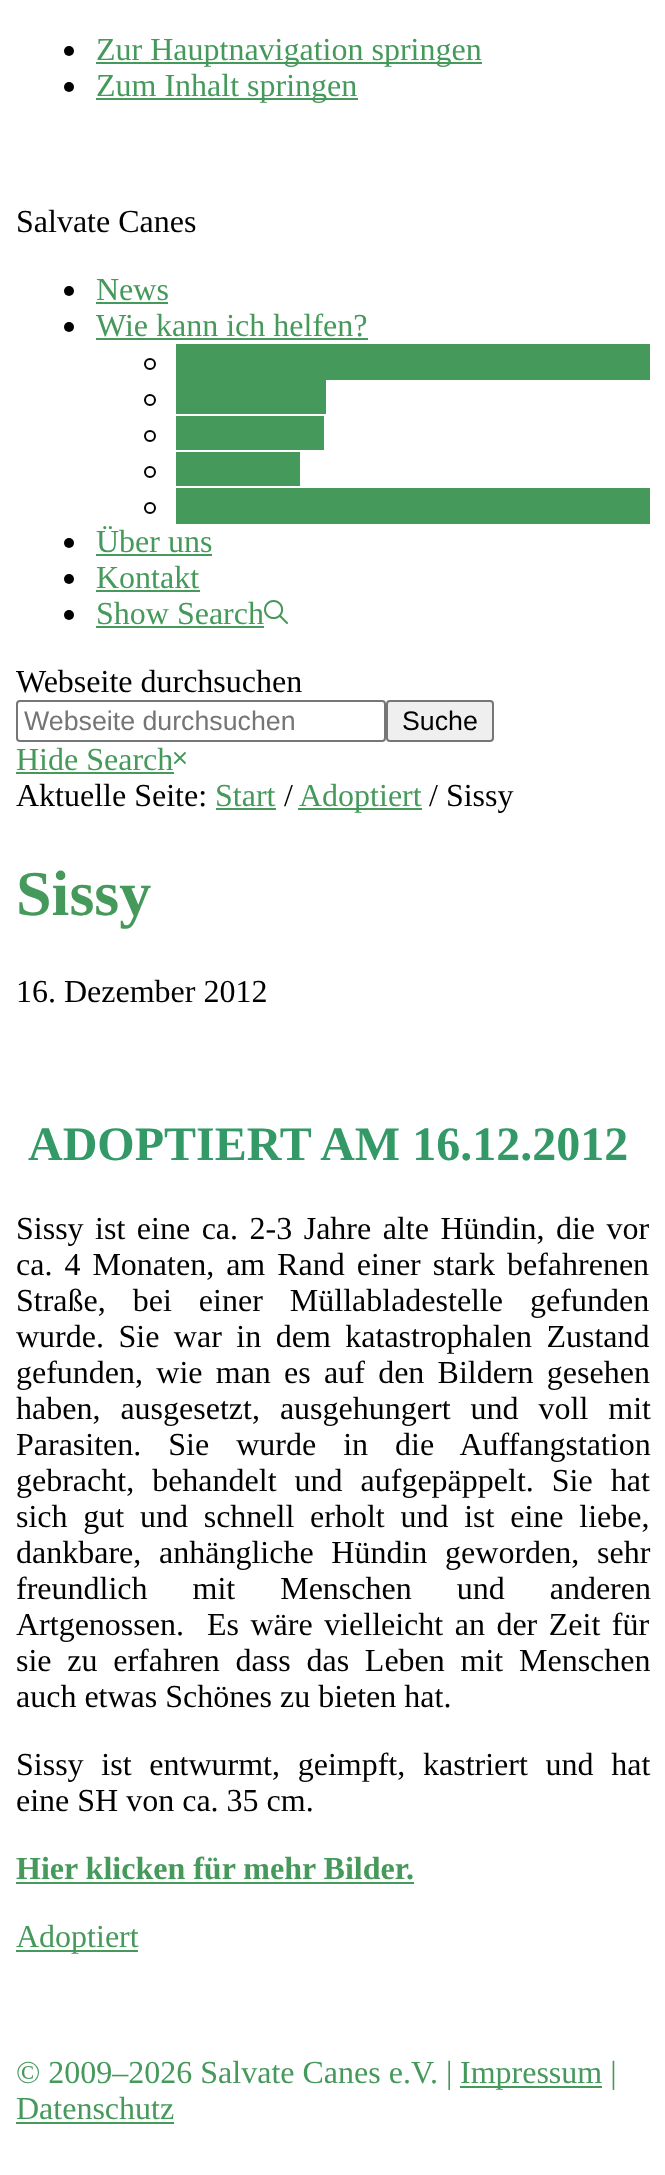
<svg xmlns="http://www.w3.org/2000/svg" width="665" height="2175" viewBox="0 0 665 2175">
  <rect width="100%" height="100%" fill="#ffffff"/>
  <circle cx="69" cy="51" r="5" fill="#000000"/>
  <rect x="96" y="62" width="386" height="2" fill="#45995a"/>
  <text x="96" y="60" font-family="Liberation Serif" font-size="32" fill="#45995a">Zur Hauptnavigation springen</text>
  <circle cx="69" cy="87" r="5" fill="#000000"/>
  <rect x="96" y="98" width="262" height="2" fill="#45995a"/>
  <text x="96" y="96" font-family="Liberation Serif" font-size="32" fill="#45995a">Zum Inhalt springen</text>
  <text x="16" y="232" font-family="Liberation Serif" font-size="32" fill="#000000">Salvate Canes</text>
  <circle cx="69" cy="291" r="5" fill="#000000"/>
  <text x="96" y="300" font-family="Liberation Serif" font-size="32" fill="#45995a">News</text>
  <rect x="96" y="302" width="72" height="2" fill="#45995a"/>
  <circle cx="69" cy="327" r="5" fill="#000000"/>
  <text x="96" y="336" font-family="Liberation Serif" font-size="32" fill="#45995a">Wie kann ich helfen?</text>
  <rect x="96" y="338" width="272" height="2" fill="#45995a"/>
  <rect x="176" y="344" width="474" height="36" fill="#45995a"/>
  <circle cx="150" cy="364" r="5" fill="none" stroke="#000000" stroke-width="2"/>
  <circle cx="150" cy="400" r="5" fill="none" stroke="#000000" stroke-width="2"/>
  <rect x="176" y="380" width="150" height="34" fill="#45995a"/>
  <circle cx="150" cy="436" r="5" fill="none" stroke="#000000" stroke-width="2"/>
  <rect x="176" y="416" width="148" height="34" fill="#45995a"/>
  <circle cx="150" cy="472" r="5" fill="none" stroke="#000000" stroke-width="2"/>
  <rect x="176" y="452" width="124" height="34" fill="#45995a"/>
  <rect x="176" y="488" width="474" height="36" fill="#45995a"/>
  <circle cx="150" cy="508" r="5" fill="none" stroke="#000000" stroke-width="2"/>
  <circle cx="69" cy="543" r="5" fill="#000000"/>
  <text x="96" y="552" font-family="Liberation Serif" font-size="32" fill="#45995a">Über uns</text>
  <rect x="96" y="554" width="116" height="2" fill="#45995a"/>
  <circle cx="69" cy="579" r="5" fill="#000000"/>
  <text x="96" y="588" font-family="Liberation Serif" font-size="32" fill="#45995a">Kontakt</text>
  <rect x="96" y="590" width="104" height="2" fill="#45995a"/>
  <circle cx="69" cy="615" r="5" fill="#000000"/>
  <text x="96" y="624" font-family="Liberation Serif" font-size="32" fill="#45995a">Show Search</text>
  <rect x="96" y="626" width="168" height="2" fill="#45995a"/>
  <image x="264" y="600" width="24" height="24" href="img1.png"/>
  <text x="16" y="692" font-family="Liberation Serif" font-size="32" fill="#000000">Webseite durchsuchen</text>
  <rect x="17" y="701" width="368" height="40" rx="3" fill="none" stroke="#767676" stroke-width="2"/>
  <text x="24" y="730" font-family="Liberation Sans" font-size="26.75" fill="#757575">Webseite durchsuchen</text>
  <rect x="387" y="701" width="106" height="40" rx="3" fill="#efefef" stroke="#767676" stroke-width="2"/>
  <text x="402" y="730" font-family="Liberation Sans" font-size="26.75" fill="#000000">Suche</text>
  <text x="16" y="770" font-family="Liberation Serif" font-size="32" fill="#45995a">Hide Search</text>
  <rect x="16" y="772" width="158" height="2" fill="#45995a"/>
  <image x="174" y="752" width="12" height="12" href="img2.png"/>
  <text x="16" y="806" font-family="Liberation Serif" font-size="32" fill="#000000">Aktuelle Seite:</text>
  <text x="215" y="806" font-family="Liberation Serif" font-size="32" fill="#45995a">Start</text>
  <rect x="216" y="808" width="60" height="2" fill="#45995a"/>
  <text x="284" y="806" font-family="Liberation Serif" font-size="32" fill="#000000">/</text>
  <rect x="298" y="808" width="124" height="2" fill="#45995a"/>
  <text x="299" y="806" font-family="Liberation Serif" font-size="32" fill="#45995a">Adoptiert</text>
  <text x="429" y="806" font-family="Liberation Serif" font-size="32" fill="#000000">/ Sissy</text>
  <text x="16" y="915" font-family="Liberation Serif" font-size="64" font-weight="bold" fill="#45995a">Sissy</text>
  <text x="16" y="1002" font-family="Liberation Serif" font-size="32" fill="#000000">16. Dezember 2012</text>
  <text x="28" y="1160" font-family="Liberation Serif" font-size="48" font-weight="bold" fill="#339966">ADOPTIERT AM 16.12.2012</text>
  <text x="16" y="1239" word-spacing="3.5" font-family="Liberation Serif" font-size="32" fill="#000000">Sissy ist eine ca. 2-3 Jahre alte Hündin, die vor</text>
  <text x="16" y="1275" word-spacing="4" font-family="Liberation Serif" font-size="32" fill="#000000">ca. 4 Monaten, am Rand einer stark befahrenen</text>
  <text x="16" y="1311" word-spacing="19" font-family="Liberation Serif" font-size="32" fill="#000000">Straße, bei einer Müllabladestelle gefunden</text>
  <text x="16" y="1347" word-spacing="6.5" font-family="Liberation Serif" font-size="32" fill="#000000">wurde. Sie war in dem katastrophalen Zustand</text>
  <text x="16" y="1383" word-spacing="5.25" font-family="Liberation Serif" font-size="32" fill="#000000">gefunden, wie man es auf den Bildern gesehen</text>
  <text x="16" y="1419" word-spacing="12" font-family="Liberation Serif" font-size="32" fill="#000000">haben, ausgesetzt, ausgehungert und voll mit</text>
  <text x="16" y="1455" word-spacing="19" font-family="Liberation Serif" font-size="32" fill="#000000">Parasiten. Sie wurde in die Auffangstation</text>
  <text x="16" y="1491" word-spacing="10" font-family="Liberation Serif" font-size="32" fill="#000000">gebracht, behandelt und aufgepäppelt. Sie hat</text>
  <text x="16" y="1527" word-spacing="7.75" font-family="Liberation Serif" font-size="32" fill="#000000">sich gut und schnell erholt und ist eine liebe,</text>
  <text x="16" y="1563" word-spacing="9.75" font-family="Liberation Serif" font-size="32" fill="#000000">dankbare, anhängliche Hündin geworden, sehr</text>
  <text x="16" y="1599" word-spacing="37" font-family="Liberation Serif" font-size="32" fill="#000000">freundlich mit Menschen und anderen</text>
  <text x="16" y="1635" word-spacing="3.5" font-family="Liberation Serif" font-size="32" fill="#000000" xml:space="preserve">Artgenossen.  Es wäre vielleicht an der Zeit für</text>
  <text x="16" y="1671" word-spacing="7.75" font-family="Liberation Serif" font-size="32" fill="#000000">sie zu erfahren dass das Leben mit Menschen</text>
  <text x="16" y="1707" font-family="Liberation Serif" font-size="32" fill="#000000">auch etwas Schönes zu bieten hat.</text>
  <text x="16" y="1775" word-spacing="9.75" font-family="Liberation Serif" font-size="32" fill="#000000">Sissy ist entwurmt, geimpft, kastriert und hat</text>
  <text x="16" y="1811" font-family="Liberation Serif" font-size="32" fill="#000000">eine SH von ca. 35 cm.</text>
  <text x="16" y="1879" font-family="Liberation Serif" font-size="32" font-weight="bold" fill="#45995a">Hier klicken für mehr Bilder.</text>
  <rect x="16" y="1882" width="398" height="2" fill="#45995a"/>
  <rect x="16" y="1950" width="122" height="2" fill="#45995a"/>
  <text x="16" y="1947" font-family="Liberation Serif" font-size="32" fill="#45995a">Adoptiert</text>
  <text x="16" y="2083" font-family="Liberation Serif" font-size="32" fill="#45995a">© 2009–2026 Salvate Canes e.V. |</text>
  <rect x="460" y="2086" width="142" height="2" fill="#45995a"/>
  <text x="460" y="2083" font-family="Liberation Serif" font-size="32" fill="#45995a">Impressum |</text>
  <text x="16" y="2119" font-family="Liberation Serif" font-size="32" fill="#45995a">Datenschutz</text>
  <rect x="16" y="2122" width="158" height="2" fill="#45995a"/>
</svg>
